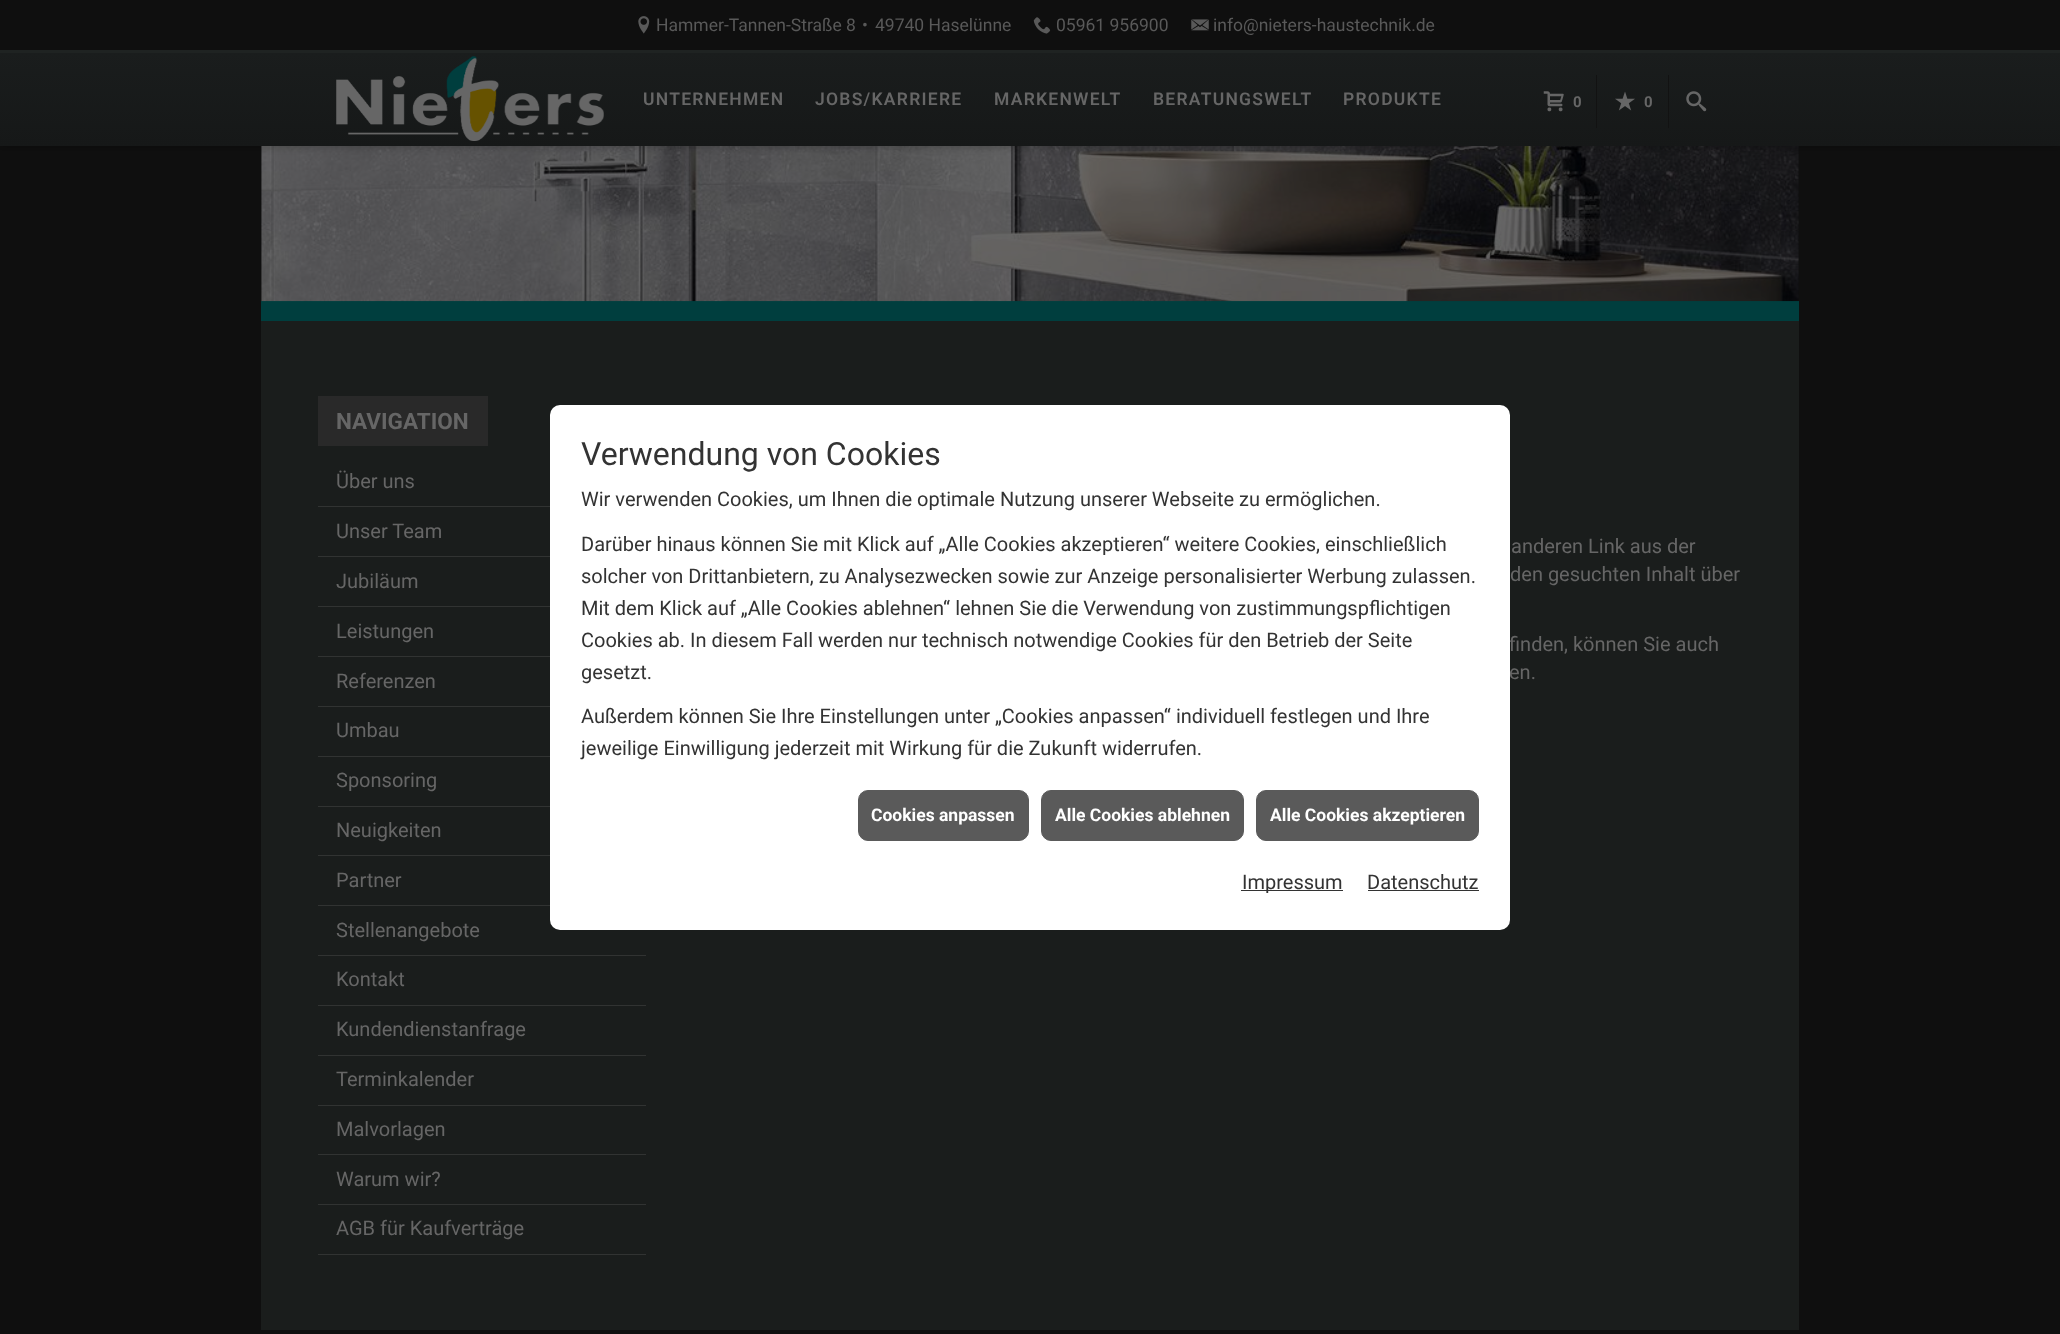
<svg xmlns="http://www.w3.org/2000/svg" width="2060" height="1334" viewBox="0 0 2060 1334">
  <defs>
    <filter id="blur1" x="-50%" y="-200%" width="200%" height="500%"><feGaussianBlur stdDeviation="3"/></filter>
    <linearGradient id="g1" gradientUnits="userSpaceOnUse" x1="1030" y1="52" x2="1030" y2="146"><stop offset="0" stop-color="#1a1d1d"/><stop offset="1" stop-color="#161818"/></linearGradient>
  </defs>
  <rect width="100%" height="100%" fill="#0f0f0f"/>
  <image x="638" y="16" width="12" height="18" href="img1.png"/>
  <text x="656" y="31" font-family="Roboto" font-size="17.5" fill="#595959">Hammer-Tannen-Straße 8</text>
  <text x="862" y="31" font-family="Roboto" font-size="17.5" fill="#595959">•</text>
  <text x="875" y="31" font-family="Roboto" font-size="17.5" fill="#595959">49740 Haselünne</text>
  <image x="1033" y="17" width="18" height="17" href="img2.png"/>
  <text x="1056" y="31" font-family="Roboto" font-size="17.5" fill="#595959">05961 956900</text>
  <image x="1191" y="19" width="18" height="12" href="img3.png"/>
  <text x="1213" y="31" font-family="Roboto" font-size="17.5" fill="#595959">info@nieters-haustechnik.de</text>
  <rect x="261" y="301" width="1538" height="20" fill="#003e3e"/>
  <image x="261" y="146" width="1538" height="156" href="img8.png"/>
  <rect x="0" y="53" width="2060" height="96" fill="#000000" fill-opacity="0.15" filter="url(#blur1)"/>
  <rect x="0" y="53" width="2060" height="93" fill="url(#g1)"/>
  <rect x="0" y="50" width="2060" height="3" fill="#1f2322"/>
  <image x="336" y="56" width="268" height="85" href="img4.png"/>
  <text x="643" y="105" font-family="Roboto" font-size="17.5" font-weight="600" letter-spacing="1.25" fill="#666666">UNTERNEHMEN</text>
  <text x="815" y="105" font-family="Roboto" font-size="17.5" font-weight="600" letter-spacing="1.25" fill="#666666">JOBS/KARRIERE</text>
  <text x="994" y="105" font-family="Roboto" font-size="17.5" font-weight="600" letter-spacing="1.25" fill="#666666">MARKENWELT</text>
  <text x="1153" y="105" font-family="Roboto" font-size="17.5" font-weight="600" letter-spacing="1.25" fill="#666666">BERATUNGSWELT</text>
  <text x="1343" y="105" font-family="Roboto" font-size="17.5" font-weight="600" letter-spacing="1.25" fill="#666666">PRODUKTE</text>
  <rect x="1596" y="75" width="1" height="53" fill="#121212"/>
  <image x="1543" y="91" width="21" height="21" href="img5.png"/>
  <text x="1573" y="107" font-family="Roboto" font-size="15" font-weight="bold" fill="#666666">0</text>
  <rect x="1668" y="75" width="1" height="53" fill="#121212"/>
  <image x="1615" y="91" width="20" height="20" href="img6.png"/>
  <text x="1644" y="107" font-family="Roboto" font-size="15" font-weight="bold" fill="#666666">0</text>
  <image x="1686" y="91" width="21" height="21" href="img7.png"/>
  <rect x="261" y="321" width="1538" height="1009" fill="#1a1d1c"/>
  <rect x="318" y="396" width="170" height="50" fill="#292929"/>
  <text x="336" y="429" font-family="Roboto" font-size="22.5" font-weight="bold" fill="#666666">NAVIGATION</text>
  <rect x="318" y="506" width="232" height="1" fill="#313332"/>
  <text x="336" y="488" font-family="Roboto" font-size="20" fill="#666666">Über uns</text>
  <rect x="318" y="556" width="232" height="1" fill="#313332"/>
  <text x="336" y="538" font-family="Roboto" font-size="20" fill="#666666">Unser Team</text>
  <rect x="318" y="606" width="232" height="1" fill="#313332"/>
  <text x="336" y="588" font-family="Roboto" font-size="20" fill="#666666">Jubiläum</text>
  <rect x="318" y="656" width="232" height="1" fill="#313332"/>
  <text x="336" y="638" font-family="Roboto" font-size="20" fill="#666666">Leistungen</text>
  <rect x="318" y="706" width="232" height="1" fill="#313332"/>
  <text x="336" y="688" font-family="Roboto" font-size="20" fill="#666666">Referenzen</text>
  <rect x="318" y="756" width="232" height="1" fill="#313332"/>
  <text x="336" y="737" font-family="Roboto" font-size="20" fill="#666666">Umbau</text>
  <rect x="318" y="806" width="232" height="1" fill="#313332"/>
  <text x="336" y="787" font-family="Roboto" font-size="20" fill="#666666">Sponsoring</text>
  <rect x="318" y="855" width="232" height="1" fill="#313332"/>
  <text x="336" y="837" font-family="Roboto" font-size="20" fill="#666666">Neuigkeiten</text>
  <rect x="318" y="905" width="232" height="1" fill="#313332"/>
  <text x="336" y="887" font-family="Roboto" font-size="20" fill="#666666">Partner</text>
  <rect x="318" y="955" width="328" height="1" fill="#313332"/>
  <text x="336" y="937" font-family="Roboto" font-size="20" fill="#666666">Stellenangebote</text>
  <rect x="318" y="1005" width="328" height="1" fill="#313332"/>
  <text x="336" y="986" font-family="Roboto" font-size="20" fill="#666666">Kontakt</text>
  <rect x="318" y="1055" width="328" height="1" fill="#313332"/>
  <text x="336" y="1036" font-family="Roboto" font-size="20" fill="#666666">Kundendienstanfrage</text>
  <rect x="318" y="1105" width="328" height="1" fill="#313332"/>
  <text x="336" y="1086" font-family="Roboto" font-size="20" fill="#666666">Terminkalender</text>
  <rect x="318" y="1154" width="328" height="1" fill="#313332"/>
  <text x="336" y="1136" font-family="Roboto" font-size="20" fill="#666666">Malvorlagen</text>
  <rect x="318" y="1204" width="328" height="1" fill="#313332"/>
  <text x="336" y="1186" font-family="Roboto" font-size="20" fill="#666666">Warum wir?</text>
  <rect x="318" y="1254" width="328" height="1" fill="#313332"/>
  <text x="336" y="1235" font-family="Roboto" font-size="20" fill="#666666">AGB für Kaufverträge</text>
  <text x="1511" y="553" font-family="Roboto" font-size="20" fill="#666666">anderen Link aus der</text>
  <text x="1510" y="581" font-family="Roboto" font-size="20" fill="#666666">den gesuchten Inhalt über</text>
  <text x="1509" y="651" font-family="Roboto" font-size="20" fill="#666666">finden, können Sie auch</text>
  <text x="1509" y="679" font-family="Roboto" font-size="20" fill="#666666">en.</text>
  <rect x="550" y="405" width="960" height="525" rx="10" fill="#ffffff"/>
  <text x="581" y="465" font-family="Roboto" font-size="32" fill="#333333">Verwendung von Cookies</text>
  <text x="581" y="506" font-family="Roboto" font-size="20" fill="#333333">Wir verwenden Cookies, um Ihnen die optimale Nutzung unserer Webseite zu ermöglichen.</text>
  <text x="581" y="551" font-family="Roboto" font-size="20" fill="#333333">Darüber hinaus können Sie mit Klick auf „Alle Cookies akzeptieren“ weitere Cookies, einschließlich</text>
  <text x="581" y="583" font-family="Roboto" font-size="20" fill="#333333">solcher von Drittanbietern, zu Analysezwecken sowie zur Anzeige personalisierter Werbung zulassen.</text>
  <text x="581" y="615" font-family="Roboto" font-size="20" fill="#333333">Mit dem Klick auf „Alle Cookies ablehnen“ lehnen Sie die Verwendung von zustimmungspflichtigen</text>
  <text x="581" y="647" font-family="Roboto" font-size="20" fill="#333333">Cookies ab. In diesem Fall werden nur technisch notwendige Cookies für den Betrieb der Seite</text>
  <text x="581" y="679" font-family="Roboto" font-size="20" fill="#333333">gesetzt.</text>
  <text x="581" y="723" font-family="Roboto" font-size="20" fill="#333333">Außerdem können Sie Ihre Einstellungen unter „Cookies anpassen“ individuell festlegen und Ihre</text>
  <text x="581" y="755" font-family="Roboto" font-size="20" fill="#333333">jeweilige Einwilligung jederzeit mit Wirkung für die Zukunft widerrufen.</text>
  <rect x="858.5" y="790.5" width="170" height="50" rx="9.5" fill="#5a5a5a" stroke="#5a5a5a"/>
  <text x="871" y="821" font-family="Roboto" font-size="17.5" font-weight="bold" fill="#ffffff">Cookies anpassen</text>
  <rect x="1041.5" y="790.5" width="202" height="50" rx="9.5" fill="#5a5a5a" stroke="#5a5a5a"/>
  <text x="1055" y="821" font-family="Roboto" font-size="17.5" font-weight="bold" fill="#ffffff">Alle Cookies ablehnen</text>
  <rect x="1256.5" y="790.5" width="222" height="50" rx="9.5" fill="#5a5a5a" stroke="#5a5a5a"/>
  <text x="1270" y="821" font-family="Roboto" font-size="17.5" font-weight="bold" fill="#ffffff">Alle Cookies akzeptieren</text>
  <rect x="1241" y="890" width="102" height="1" fill="#333333"/>
  <text x="1242" y="889" font-family="Roboto" font-size="20" fill="#333333">Impressum</text>
  <text x="1367" y="889" font-family="Roboto" font-size="20" fill="#333333">Datenschutz</text>
  <rect x="1368" y="890" width="111" height="1" fill="#333333"/>
</svg>
